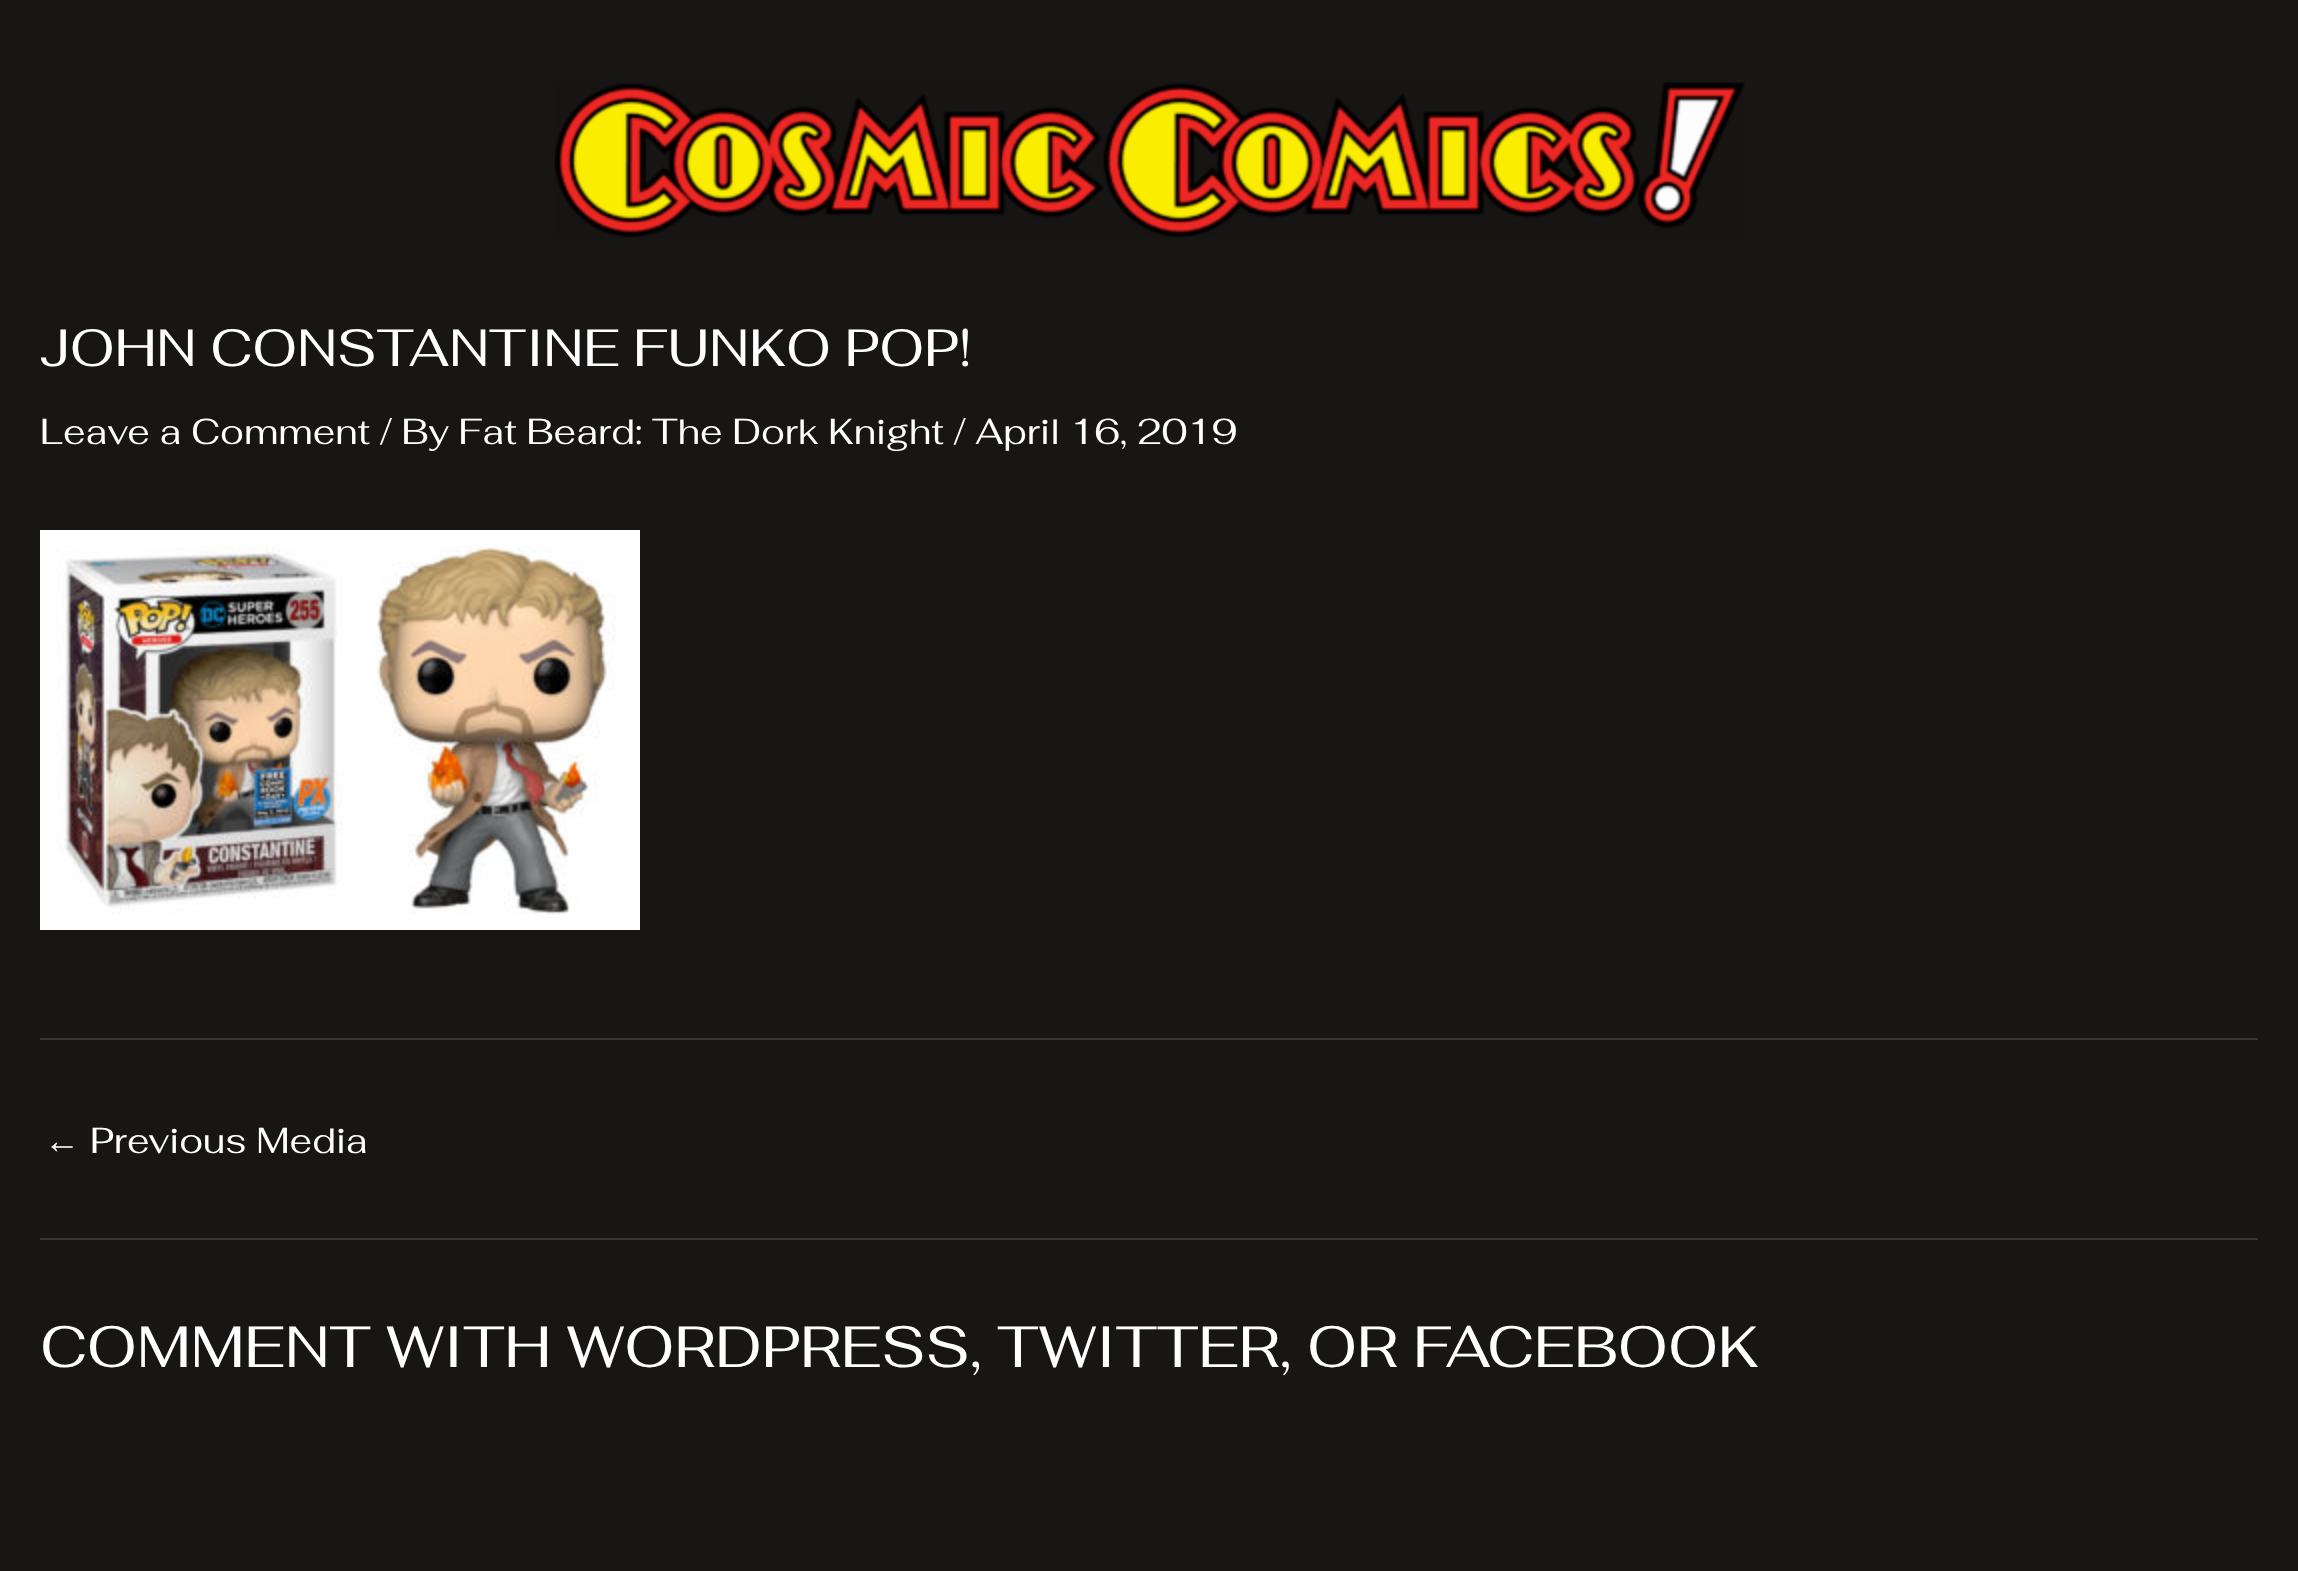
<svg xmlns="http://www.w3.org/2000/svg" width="2298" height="1571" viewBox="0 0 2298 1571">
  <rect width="100%" height="100%" fill="#171615"/>
  <image x="554" y="82" width="1191" height="156" href="img1.png"/>
  <text x="40" y="366" font-family="Fahkwang" font-size="52" fill="#ffffff">JOHN CONSTANTINE FUNKO POP!</text>
  <text x="40" y="444" font-family="Fahkwang" font-size="36" fill="#ffffff">Leave a Comment / By Fat Beard: The Dork Knight / April 16, 2019</text>
  <image x="40" y="530" width="600" height="400" href="img2.png"/>
  <rect x="40" y="1038" width="2218" height="2" fill="#373532"/>
  <text x="44" y="1153" font-family="Liberation Sans" font-size="36" fill="#ffffff">←</text>
  <text x="90" y="1153" font-family="Fahkwang" font-size="36" fill="#ffffff">Previous Media</text>
  <rect x="40" y="1238" width="2218" height="2" fill="#373532"/>
  <text x="40" y="1367" font-family="Fahkwang" font-size="58" fill="#ffffff">COMMENT WITH WORDPRESS, TWITTER, OR FACEBOOK</text>
</svg>
